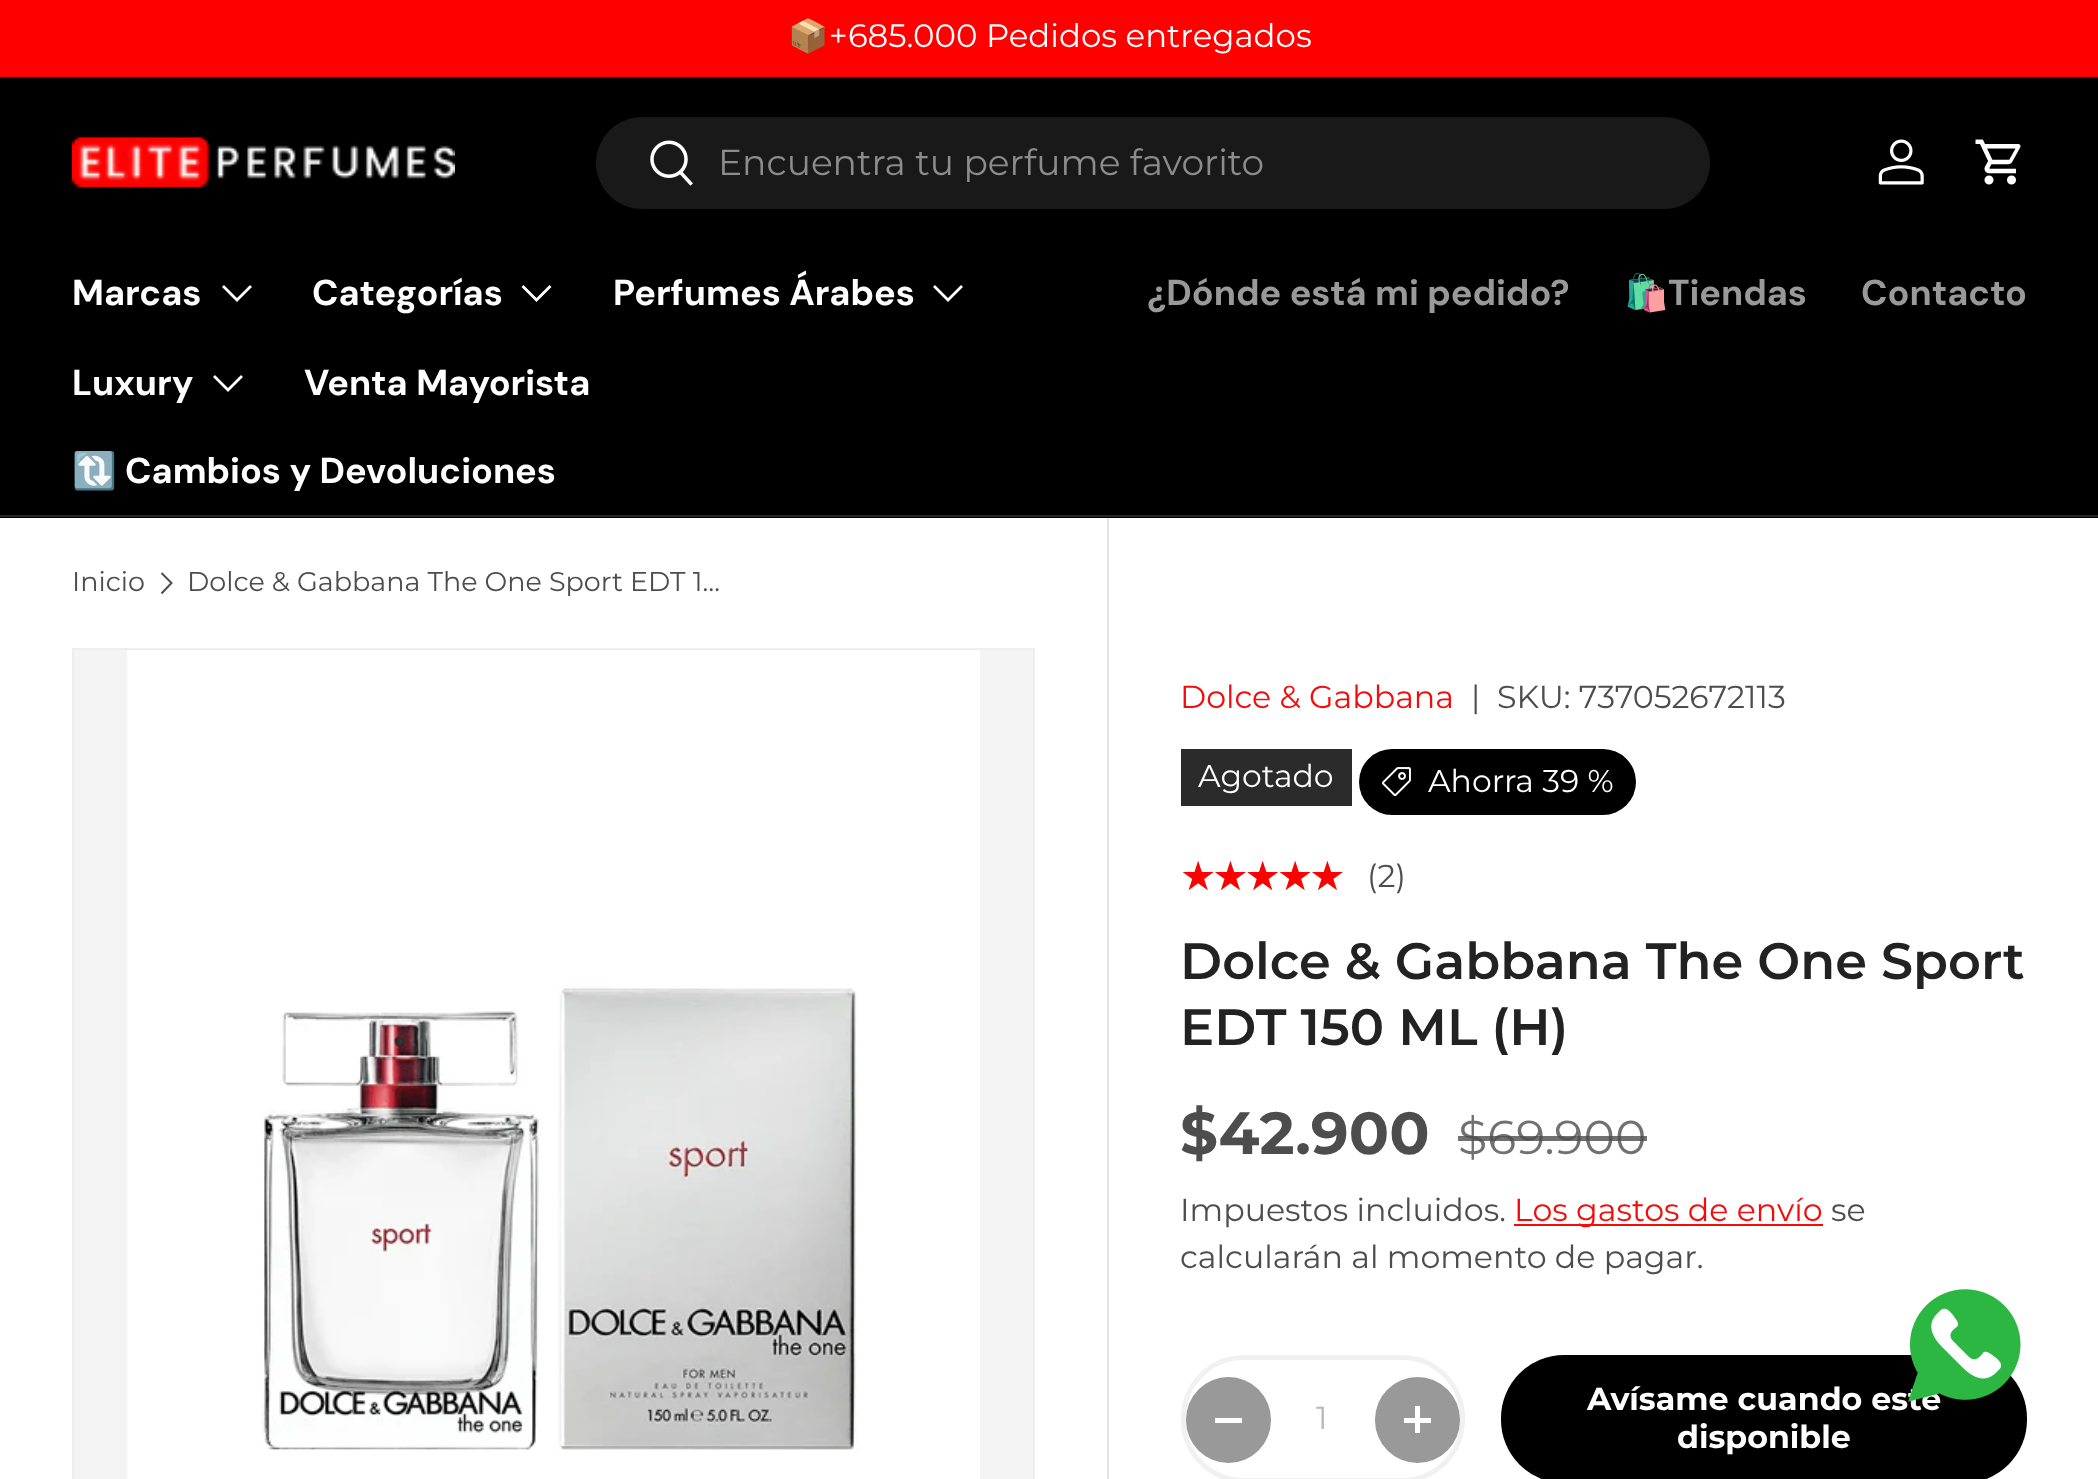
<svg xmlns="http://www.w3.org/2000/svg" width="2098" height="1479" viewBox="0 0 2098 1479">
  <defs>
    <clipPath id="clip1"><rect x="187" y="569" width="540" height="27"/></clipPath>
    <linearGradient id="g1" gradientUnits="userSpaceOnUse" x1="1180" y1="877" x2="1343" y2="877"><stop offset="1" stop-color="#ff0000"/><stop offset="1" stop-color="#ffcccc"/></linearGradient>
  </defs>
  <rect width="100%" height="100%" fill="#ffffff"/>
  <rect x="0" y="0" width="2098" height="77" fill="#ff0000"/>
  <text x="788" y="47" font-family="Noto Color Emoji" font-size="32.4" fill="#ffffff">📦</text>
  <text x="829" y="47" font-family="Montserrat" font-size="32.4" font-weight="100" fill="#ffffff">+685.000 Pedidos entregados</text>
  <rect x="0" y="77" width="2098" height="441" fill="#000000"/>
  <rect x="0" y="515" width="2098" height="2" fill="#262626"/>
  <image x="72" y="136" width="383" height="51" href="img1.png"/>
  <rect x="596" y="117" width="1114" height="92" rx="46" fill="#191919"/>
  <image x="650" y="140" width="43" height="46" href="img2.png"/>
  <text x="718" y="175" font-family="Montserrat" font-size="36" font-weight="100" fill="#8c8c8c">Encuentra tu perfume favorito</text>
  <image x="1878" y="139" width="46" height="46" href="img3.png"/>
  <image x="1975" y="139" width="46" height="46" href="img4.png"/>
  <text x="72" y="305" font-family="DM Sans" font-size="36" font-weight="bold" fill="#ffffff">Marcas</text>
  <path d="M251 286L237 300L223 286" fill="none" stroke="#ffffff" stroke-width="2.8"/>
  <text x="312" y="305" font-family="DM Sans" font-size="36" font-weight="bold" fill="#ffffff">Categorías</text>
  <path d="M550.5 286L536.5 300L522.5 286" fill="none" stroke="#ffffff" stroke-width="2.8"/>
  <text x="613" y="305" font-family="DM Sans" font-size="36" font-weight="bold" fill="#ffffff">Perfumes Árabes</text>
  <path d="M962 286L948 300L934 286" fill="none" stroke="#ffffff" stroke-width="2.8"/>
  <text x="72" y="395" font-family="DM Sans" font-size="36" font-weight="bold" fill="#ffffff">Luxury</text>
  <path d="M242 376L228 390L214 376" fill="none" stroke="#ffffff" stroke-width="2.8"/>
  <text x="304" y="395" font-family="DM Sans" font-size="36" font-weight="bold" fill="#ffffff">Venta Mayorista</text>
  <text x="72" y="483" font-family="Noto Color Emoji" font-size="36" font-weight="bold" fill="#ffffff">🔃</text>
  <text x="125" y="483" font-family="DM Sans" font-size="36" font-weight="bold" fill="#ffffff">Cambios y Devoluciones</text>
  <text x="1147" y="305" font-family="DM Sans" font-size="36" font-weight="bold" fill="#999999">¿Dónde está mi pedido?</text>
  <text x="1624" y="305" font-family="Noto Color Emoji" font-size="36" font-weight="bold" fill="#999999">🛍️</text>
  <text x="1668" y="305" font-family="DM Sans" font-size="36" font-weight="bold" fill="#999999">Tiendas</text>
  <text x="1861" y="305" font-family="DM Sans" font-size="36" font-weight="bold" fill="#999999">Contacto</text>
  <text x="72" y="591" font-family="Montserrat" font-size="27" font-weight="100" fill="#4d4d4d">Inicio</text>
  <path d="M161.5 573L171.5 583L161.5 593.5" fill="none" stroke="#4d4d4d" stroke-width="2"/>
  <g clip-path="url(#clip1)">
    <text x="187" y="591" font-family="Montserrat" font-size="27" font-weight="100" fill="#4d4d4d">Dolce &amp; Gabbana The One Sport EDT 1…</text>
  </g>
  <rect x="73" y="649" width="961" height="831" fill="#f4f4f4" stroke="#eeeeee" stroke-width="2"/>
  <image x="127" y="650" width="853" height="829" href="img5.png"/>
  <rect x="1107" y="518" width="2" height="961" fill="#e4e4e4"/>
  <text x="1180" y="708" font-family="Montserrat" font-size="31.7" font-weight="100" fill="#f40c0c">Dolce &amp; Gabbana</text>
  <text x="1471" y="708" font-family="Montserrat" font-size="31.7" font-weight="100" fill="#4d4d4d">|</text>
  <text x="1497" y="708" font-family="Montserrat" font-size="31.7" font-weight="100" fill="#4d4d4d">SKU: 737052672113</text>
  <rect x="1181" y="749" width="171" height="57" fill="#2a2b2a"/>
  <text x="1198" y="787" font-family="Montserrat" font-size="31.5" font-weight="100" fill="#ffffff">Agotado</text>
  <rect x="1359" y="749" width="277" height="66" rx="33" fill="#000000"/>
  <image x="1382" y="767" width="29" height="30" href="img6.png"/>
  <text x="1428" y="792" font-family="Montserrat" font-size="31.5" font-weight="100" fill="#ffffff">Ahorra 39 %</text>
  <text x="1180" y="890" font-family="DejaVu Sans" font-size="40.5" letter-spacing="-4" fill="url(#g1)">★★★★★</text>
  <text x="1367" y="887" font-family="Montserrat" font-size="31.7" font-weight="100" fill="#4d4d4d">(2)</text>
  <text x="1180" y="979" font-family="Montserrat" font-size="51" font-weight="600" fill="#222222">Dolce &amp; Gabbana The One Sport</text>
  <text x="1180" y="1045" font-family="Montserrat" font-size="51" font-weight="600" fill="#222222">EDT 150 ML (H)</text>
  <text x="1180" y="1154" font-family="Montserrat" font-size="59.5" font-weight="bold" fill="#4d4d4d">$42.900</text>
  <text x="1458" y="1154" font-family="Montserrat" font-size="47.5" font-weight="100" fill="#717171">$69.900</text>
  <rect x="1458" y="1136" width="189" height="5" fill="#4d4d4d" fill-opacity="0.8"/>
  <text x="1180" y="1221" font-family="Montserrat" font-size="31.7" font-weight="100" fill="#4d4d4d">Impuestos incluidos.</text>
  <rect x="1514" y="1224" width="309" height="2" fill="#f40c0c"/>
  <text x="1514" y="1221" font-family="Montserrat" font-size="31.7" font-weight="100" fill="#f40c0c">Los gastos de envío</text>
  <text x="1831" y="1221" font-family="Montserrat" font-size="31.7" font-weight="100" fill="#4d4d4d">se</text>
  <text x="1180" y="1268" font-family="Montserrat" font-size="31.7" font-weight="100" fill="#4d4d4d">calcularán al momento de pagar.</text>
  <rect x="1183.5" y="1357.5" width="279" height="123" rx="60.5" fill="none" stroke="#f1f1f1" stroke-width="5"/>
  <rect x="1186" y="1377" width="85" height="86" rx="42.5" fill="#999999"/>
  <rect x="1215" y="1418" width="27" height="5" fill="#ffffff"/>
  <text x="1316" y="1429" font-family="Montserrat" font-size="31.7" font-weight="100" fill="#b8b8b8">1</text>
  <rect x="1375" y="1377" width="85" height="86" rx="42.5" fill="#999999"/>
  <rect x="1404" y="1418" width="27" height="5" fill="#ffffff"/>
  <rect x="1415" y="1406" width="5" height="27" fill="#ffffff"/>
  <rect x="1501" y="1355" width="526" height="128" rx="63" fill="#000000"/>
  <text x="1587" y="1410" font-family="Montserrat" font-size="31.7" font-weight="bold" fill="#ffffff">Avísame cuando esté</text>
  <text x="1677" y="1448" font-family="Montserrat" font-size="31.7" font-weight="bold" fill="#ffffff">disponible</text>
  <image x="1908" y="1289" width="113" height="113" href="img7.png"/>
</svg>
